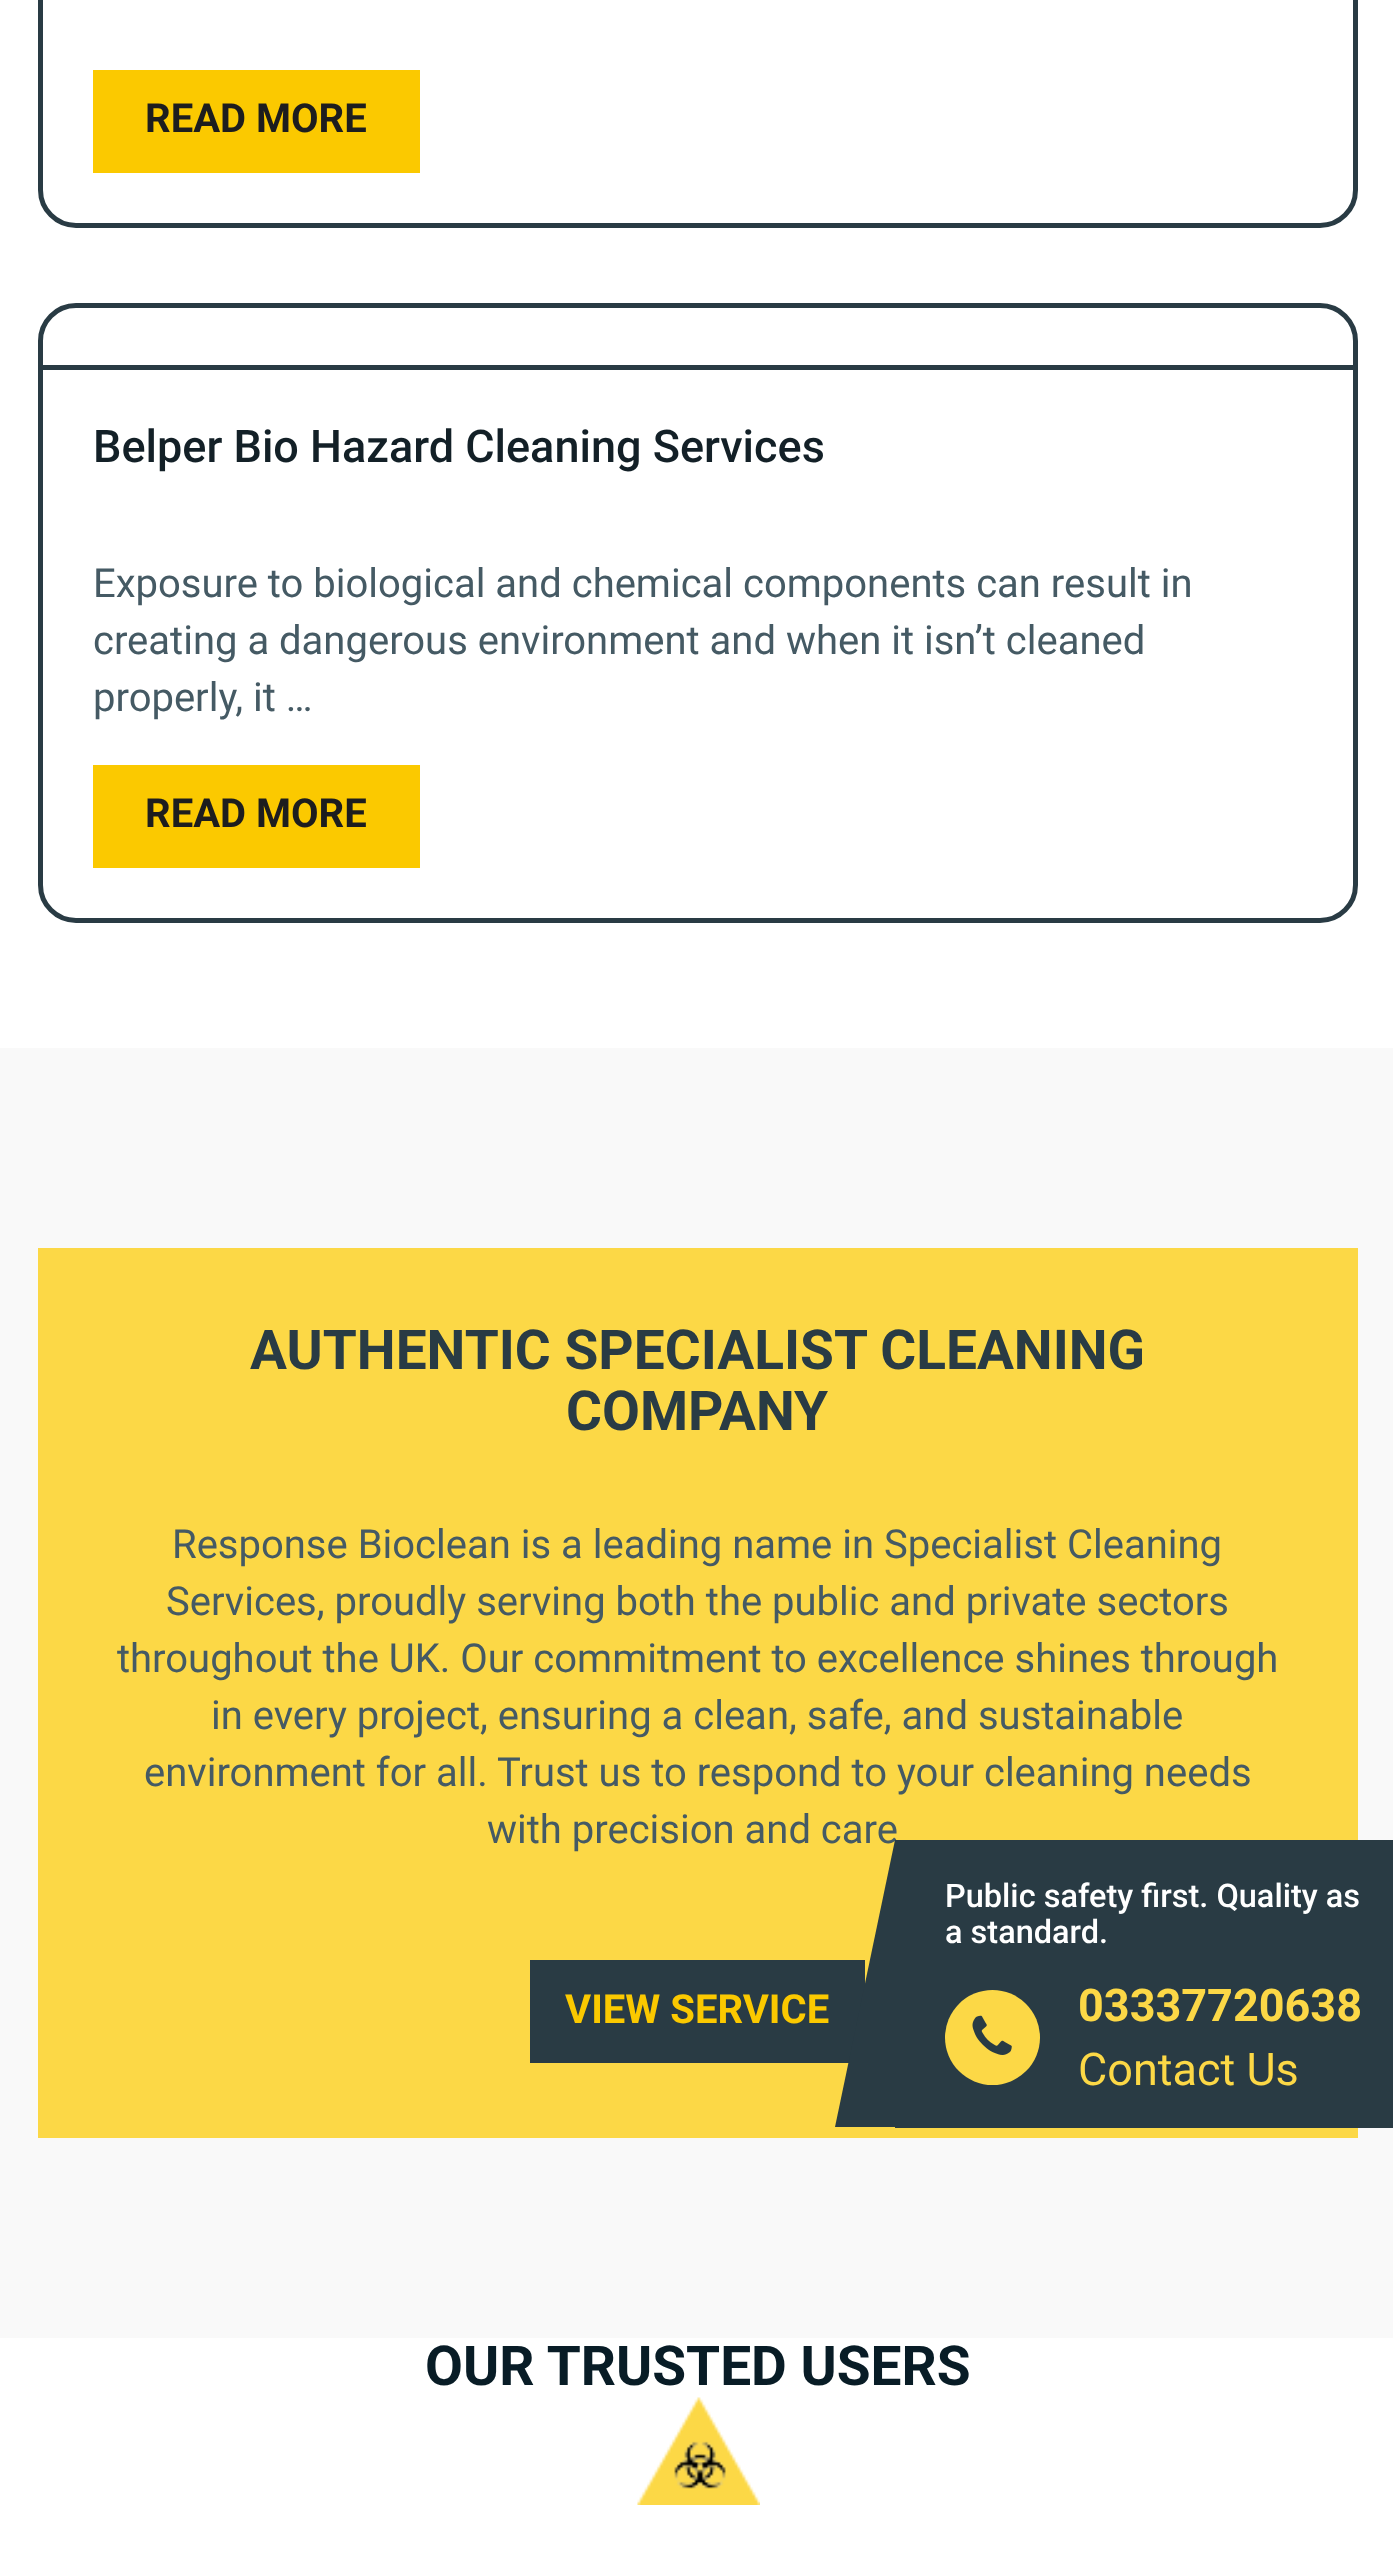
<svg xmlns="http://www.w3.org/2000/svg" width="1393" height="2553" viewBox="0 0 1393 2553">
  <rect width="100%" height="100%" fill="#ffffff"/>
  <rect x="40.5" y="-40.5" width="1315" height="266" rx="35.5" fill="none" stroke="#293b44" stroke-width="5"/>
  <rect x="93" y="70" width="327" height="103" fill="#fbc900"/>
  <text x="145" y="132" font-family="Roboto" font-size="40" font-weight="bold" fill="#1d1d1e">READ MORE</text>
  <rect x="40.5" y="305.5" width="1315" height="615" rx="35.5" fill="none" stroke="#293b44" stroke-width="5"/>
  <rect x="43" y="365" width="1310" height="5" fill="#293b44"/>
  <text x="93" y="462" font-family="Roboto" font-size="45" font-weight="500" fill="#132027">Belper Bio Hazard Cleaning Services</text>
  <text x="93" y="597" font-family="Roboto" font-size="40" fill="#455a64">Exposure to biological and chemical components can result in</text>
  <text x="93" y="654" font-family="Roboto" font-size="40" fill="#455a64">creating a dangerous environment and when it isn’t cleaned</text>
  <text x="93" y="711" font-family="Roboto" font-size="40" fill="#455a64">properly, it …</text>
  <rect x="93" y="765" width="327" height="103" fill="#fbc900"/>
  <text x="145" y="827" font-family="Roboto" font-size="40" font-weight="bold" fill="#1d1d1e">READ MORE</text>
  <rect x="0" y="1048" width="1393" height="1290" fill="#f9f9f9"/>
  <rect x="38" y="1248" width="1320" height="890" fill="#fcd846"/>
  <text x="250" y="1369" font-family="Roboto" font-size="55" font-weight="bold" fill="#293b44">AUTHENTIC SPECIALIST CLEANING</text>
  <text x="566" y="1430" font-family="Roboto" font-size="55" font-weight="bold" fill="#293b44">COMPANY</text>
  <text x="172" y="1558" font-family="Roboto" font-size="40" fill="#455a64">Response Bioclean is a leading name in Specialist Cleaning</text>
  <text x="166" y="1615" font-family="Roboto" font-size="40" fill="#455a64">Services, proudly serving both the public and private sectors</text>
  <text x="117" y="1672" font-family="Roboto" font-size="40" fill="#455a64">throughout the UK. Our commitment to excellence shines through</text>
  <text x="211" y="1729" font-family="Roboto" font-size="40" fill="#455a64">in every project, ensuring a clean, safe, and sustainable</text>
  <text x="144" y="1786" font-family="Roboto" font-size="40" fill="#455a64">environment for all. Trust us to respond to your cleaning needs</text>
  <text x="487" y="1843" font-family="Roboto" font-size="40" fill="#455a64">with precision and care</text>
  <rect x="530" y="1960" width="335" height="103" fill="#293b44"/>
  <text x="565" y="2023" font-family="Roboto" font-size="40" font-weight="bold" fill="#fbc900">VIEW SERVICE</text>
  <rect x="895" y="1840" width="498" height="288" fill="#293b44"/>
  <path d="M895 1840L835 2127H895Z" fill="#293b44"/>
  <text x="945" y="1907" font-family="Roboto" font-size="32.5" font-weight="500" fill="#ffffff">Public safety first. Quality as</text>
  <text x="945" y="1943" font-family="Roboto" font-size="32.5" font-weight="500" fill="#ffffff">a standard.</text>
  <circle cx="992.5" cy="2037.5" r="47.5" fill="#fcd846"/>
  <image x="972" y="2015" width="40" height="40" href="img1.png"/>
  <text x="1078" y="2021" font-family="Roboto" font-size="45" font-weight="bold" fill="#fcd846">03337720638</text>
  <text x="1078" y="2085" font-family="Roboto" font-size="45" fill="#fcd846">Contact Us</text>
  <text x="425" y="2385" font-family="Roboto" font-size="55" font-weight="bold" fill="#081c26">OUR TRUSTED USERS</text>
  <image x="637" y="2397" width="123" height="108" href="img2.png"/>
</svg>
